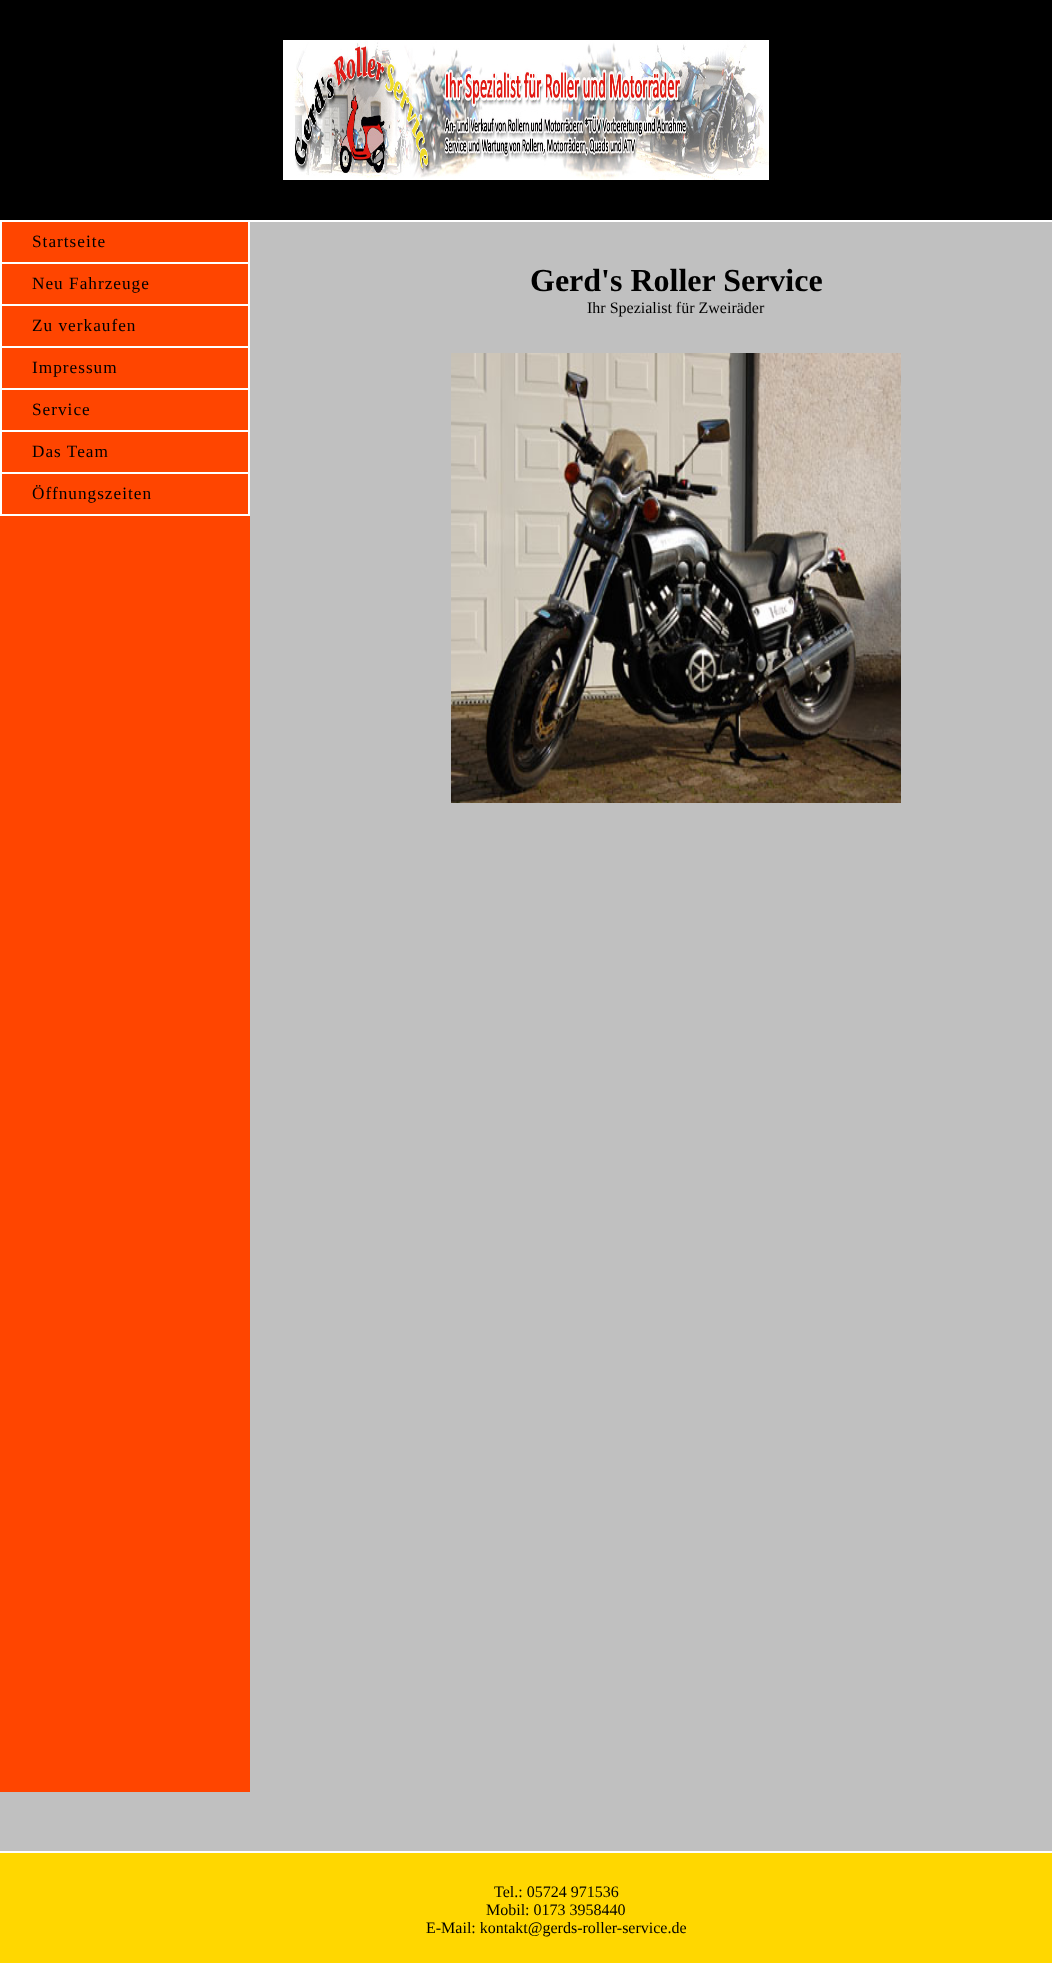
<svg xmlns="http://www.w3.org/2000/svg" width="1052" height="1963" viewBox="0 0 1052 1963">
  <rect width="100%" height="100%" fill="#c0c0c0"/>
  <rect x="0" y="0" width="1052" height="220" fill="#000000"/>
  <rect x="0" y="220" width="1052" height="2" fill="#ffffff"/>
  <image x="283" y="40" width="486" height="140" href="img1.png"/>
  <rect x="0" y="222" width="250" height="1570" fill="#ff4500"/>
  <rect x="248" y="222" width="2" height="294" fill="#ffffff"/>
  <rect x="0" y="262" width="250" height="2" fill="#ffffff"/>
  <rect x="0" y="222" width="2" height="42" fill="#ffffff"/>
  <text x="32" y="247" font-family="Liberation Serif" font-size="17.25" letter-spacing="1" fill="#000000">Startseite</text>
  <rect x="0" y="304" width="250" height="2" fill="#ffffff"/>
  <rect x="0" y="264" width="2" height="42" fill="#ffffff"/>
  <text x="32" y="289" font-family="Liberation Serif" font-size="17.25" letter-spacing="1" fill="#000000">Neu Fahrzeuge</text>
  <rect x="0" y="346" width="250" height="2" fill="#ffffff"/>
  <rect x="0" y="306" width="2" height="42" fill="#ffffff"/>
  <text x="32" y="331" font-family="Liberation Serif" font-size="17.25" letter-spacing="1" fill="#000000">Zu verkaufen</text>
  <rect x="0" y="388" width="250" height="2" fill="#ffffff"/>
  <rect x="0" y="348" width="2" height="42" fill="#ffffff"/>
  <text x="32" y="373" font-family="Liberation Serif" font-size="17.25" letter-spacing="1" fill="#000000">Impressum</text>
  <rect x="0" y="430" width="250" height="2" fill="#ffffff"/>
  <rect x="0" y="390" width="2" height="42" fill="#ffffff"/>
  <text x="32" y="415" font-family="Liberation Serif" font-size="17.25" letter-spacing="1" fill="#000000">Service</text>
  <rect x="0" y="472" width="250" height="2" fill="#ffffff"/>
  <rect x="0" y="432" width="2" height="42" fill="#ffffff"/>
  <text x="32" y="457" font-family="Liberation Serif" font-size="17.25" letter-spacing="1" fill="#000000">Das Team</text>
  <rect x="0" y="514" width="250" height="2" fill="#ffffff"/>
  <rect x="0" y="474" width="2" height="42" fill="#ffffff"/>
  <text x="32" y="499" font-family="Liberation Serif" font-size="17.25" letter-spacing="1" fill="#000000">Öffnungszeiten</text>
  <text x="530" y="291" font-family="Liberation Serif" font-size="32" font-weight="bold" fill="#000000">Gerd's Roller Service</text>
  <text x="587" y="313" font-family="Liberation Serif" font-size="16" fill="#000000">Ihr Spezialist für Zweiräder</text>
  <image x="451" y="353" width="450" height="450" href="img2.png"/>
  <rect x="0" y="1853" width="1052" height="110" fill="#ffd700"/>
  <rect x="0" y="1851" width="1052" height="2" fill="#ffffff"/>
  <text x="494" y="1897" font-family="Liberation Serif" font-size="16" fill="#000000">Tel.: 05724 971536</text>
  <text x="486" y="1915" font-family="Liberation Serif" font-size="16" fill="#000000">Mobil: 0173 3958440</text>
  <text x="426" y="1933" font-family="Liberation Serif" font-size="16" fill="#000000">E-Mail: kontakt@gerds-roller-service.de</text>
</svg>
